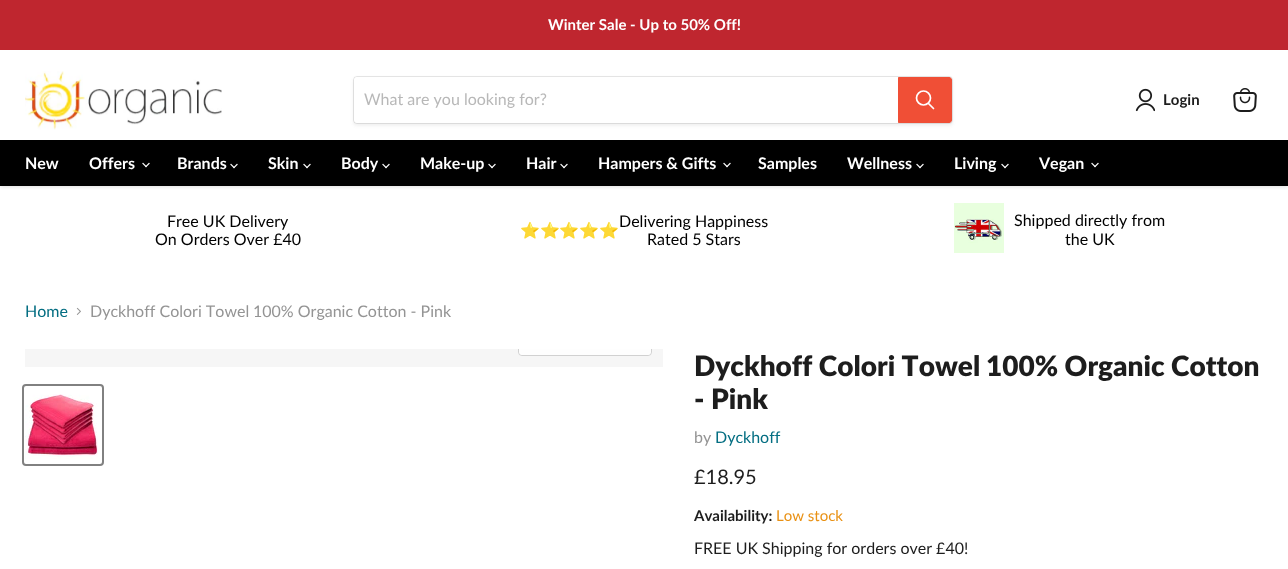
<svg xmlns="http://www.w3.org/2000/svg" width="1288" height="569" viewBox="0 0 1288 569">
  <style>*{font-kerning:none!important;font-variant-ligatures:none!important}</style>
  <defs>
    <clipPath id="clip1"><rect x="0" y="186" width="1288" height="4"/></clipPath>
    <filter id="blur1" x="-50%" y="-200%" width="200%" height="500%"><feGaussianBlur stdDeviation="2"/></filter>
    <filter id="blur2" x="-50%" y="-200%" width="200%" height="500%"><feGaussianBlur stdDeviation="1.5"/></filter>
    <clipPath id="clip2"><rect x="25" y="349" width="638" height="18"/></clipPath>
  </defs>
  <rect width="100%" height="100%" fill="#ffffff"/>
  <g clip-path="url(#clip1)">
    <rect x="0" y="51" width="1288" height="136" fill="#808080" fill-opacity="0.25" filter="url(#blur1)"/>
  </g>
  <rect x="0" y="0" width="1288" height="50" fill="#bf262f"/>
  <text x="548" y="30" font-family="Lato" font-size="15" font-weight="bold" fill="#ffffff">Winter Sale - Up to 50% Off!</text>
  <image x="25" y="71" width="197" height="59" href="img1.png"/>
  <rect x="353" y="78" width="600" height="48" rx="4" fill="#808080" fill-opacity="0.11" filter="url(#blur2)"/>
  <rect x="353.5" y="76.5" width="599" height="47" rx="3.5" fill="none" stroke="#808080" stroke-opacity="0.2"/>
  <path d="M357 77H898V123H357C355.5 123 354 121.5 354 120V80C354 78.5 355.5 77 357 77Z" fill="#ffffff"/>
  <text x="364" y="105" font-family="Lato" font-size="16" fill="#b8b8b8">What are you looking for?</text>
  <path d="M898.5 77.5H949C950.5 77.5 951.5 78.5 951.5 80V120C951.5 121.5 950.5 122.5 949 122.5H898.5Z" fill="#f04f36" stroke="#f04f36"/>
  <path d="M933.5 108.5L928.5 103.5" fill="none" stroke="#ffffff" stroke-width="1.7" stroke-linecap="round"/>
  <circle cx="923.5" cy="98" r="7" fill="none" stroke="#ffffff" stroke-width="1.7"/>
  <image x="1135" y="88" width="20" height="24" href="img2.png"/>
  <text x="1163" y="105" font-family="Lato" font-size="15" font-weight="bold" fill="#1d1d1d">Login</text>
  <image x="1233" y="88" width="24" height="24" href="img3.png"/>
  <rect x="0" y="140" width="1288" height="46" fill="#000000"/>
  <text x="25" y="169" font-family="Lato" font-size="16" font-weight="bold" fill="#ffffff">New</text>
  <text x="89" y="169" font-family="Lato" font-size="16" font-weight="bold" fill="#ffffff">Offers</text>
  <image x="142" y="162" width="8" height="6" href="img4.png"/>
  <text x="177" y="169" font-family="Lato" font-size="16" font-weight="bold" fill="#ffffff">Brands</text>
  <image x="230" y="163" width="8" height="6" href="img4.png"/>
  <text x="268" y="169" font-family="Lato" font-size="16" font-weight="bold" fill="#ffffff">Skin</text>
  <image x="303" y="163" width="8" height="6" href="img4.png"/>
  <text x="341" y="169" font-family="Lato" font-size="16" font-weight="bold" fill="#ffffff">Body</text>
  <image x="382" y="163" width="8" height="6" href="img4.png"/>
  <text x="420" y="169" font-family="Lato" font-size="16" font-weight="bold" fill="#ffffff">Make-up</text>
  <image x="488" y="163" width="8" height="6" href="img4.png"/>
  <text x="526" y="169" font-family="Lato" font-size="16" font-weight="bold" fill="#ffffff">Hair</text>
  <image x="560" y="163" width="8" height="6" href="img4.png"/>
  <text x="598" y="169" font-family="Lato" font-size="16" font-weight="bold" fill="#ffffff">Hampers &amp; Gifts</text>
  <image x="723" y="162" width="8" height="6" href="img4.png"/>
  <text x="758" y="169" font-family="Lato" font-size="16" font-weight="bold" fill="#ffffff">Samples</text>
  <text x="847" y="169" font-family="Lato" font-size="16" font-weight="bold" fill="#ffffff">Wellness</text>
  <image x="916" y="163" width="8" height="6" href="img4.png"/>
  <text x="954" y="169" font-family="Lato" font-size="16" font-weight="bold" fill="#ffffff">Living</text>
  <image x="1001" y="163" width="8" height="6" href="img4.png"/>
  <text x="1039" y="169" font-family="Lato" font-size="16" font-weight="bold" fill="#ffffff">Vegan</text>
  <image x="1091" y="162" width="8" height="6" href="img4.png"/>
  <text x="167" y="227" font-family="Lato" font-size="16" fill="#000000">Free UK Delivery</text>
  <text x="155" y="245" font-family="Lato" font-size="16" fill="#000000">On Orders Over £40</text>
  <text x="520" y="236" font-family="Noto Color Emoji" font-size="16" fill="#1d1d1d">⭐⭐⭐⭐⭐</text>
  <text x="619" y="227" font-family="Lato" font-size="16" fill="#000000">Delivering Happiness</text>
  <text x="647" y="245" font-family="Lato" font-size="16" fill="#000000">Rated 5 Stars</text>
  <image x="954" y="203" width="50" height="50" href="img5.png"/>
  <text x="1014" y="226" font-family="Lato" font-size="16" fill="#000000">Shipped directly from</text>
  <text x="1065" y="245" font-family="Lato" font-size="16" fill="#000000">the UK</text>
  <text x="25" y="317" font-family="Lato" font-size="16" fill="#046e82">Home</text>
  <image x="76" y="307" width="5" height="8" href="img6.png"/>
  <text x="90" y="317" font-family="Lato" font-size="16" fill="#949494">Dyckhoff Colori Towel</text>
  <text x="253" y="317" font-family="Lato" font-size="16" fill="#949494">100% Organic Cotton - Pink</text>
  <rect x="25" y="349" width="638" height="18" fill="#f6f6f6"/>
  <g clip-path="url(#clip2)">
    <rect x="518.5" y="326.5" width="133" height="29" rx="3.5" fill="none" stroke="#d1d1d1"/>
  </g>
  <path d="M519 349H651V352C651 353.5 649.5 355 648 355H522C520.5 355 519 353.5 519 352Z" fill="#ffffff" fill-opacity="0.9"/>
  <rect x="23" y="385" width="80" height="80" rx="3" fill="none" stroke="#818181" stroke-width="2"/>
  <image x="25" y="394" width="73" height="65" href="img7.png"/>
  <text x="694" y="376" font-family="Lato" font-size="28" font-weight="800" fill="#1d1d1d">Dyckhoff Colori Towel</text>
  <text x="986" y="376" font-family="Lato" font-size="28" font-weight="800" fill="#1d1d1d">100% Organic Cotton</text>
  <text x="694" y="409" font-family="Lato" font-size="28" font-weight="800" fill="#1d1d1d">- Pink</text>
  <text x="694" y="443" font-family="Lato" font-size="16" fill="#949494">by</text>
  <text x="715" y="443" font-family="Lato" font-size="16" fill="#046e82">Dyckhoff</text>
  <text x="694" y="484" font-family="Lato" font-size="20" fill="#1d1d1d">£18.95</text>
  <text x="694" y="521" font-family="Lato" font-size="15" font-weight="bold" fill="#1d1d1d">Availability:</text>
  <text x="776" y="521" font-family="Lato" font-size="15" fill="#e99114">Low stock</text>
  <text x="694" y="554" font-family="Lato" font-size="16" fill="#1d1d1d">FREE UK Shipping for orders over £40!</text>
</svg>
